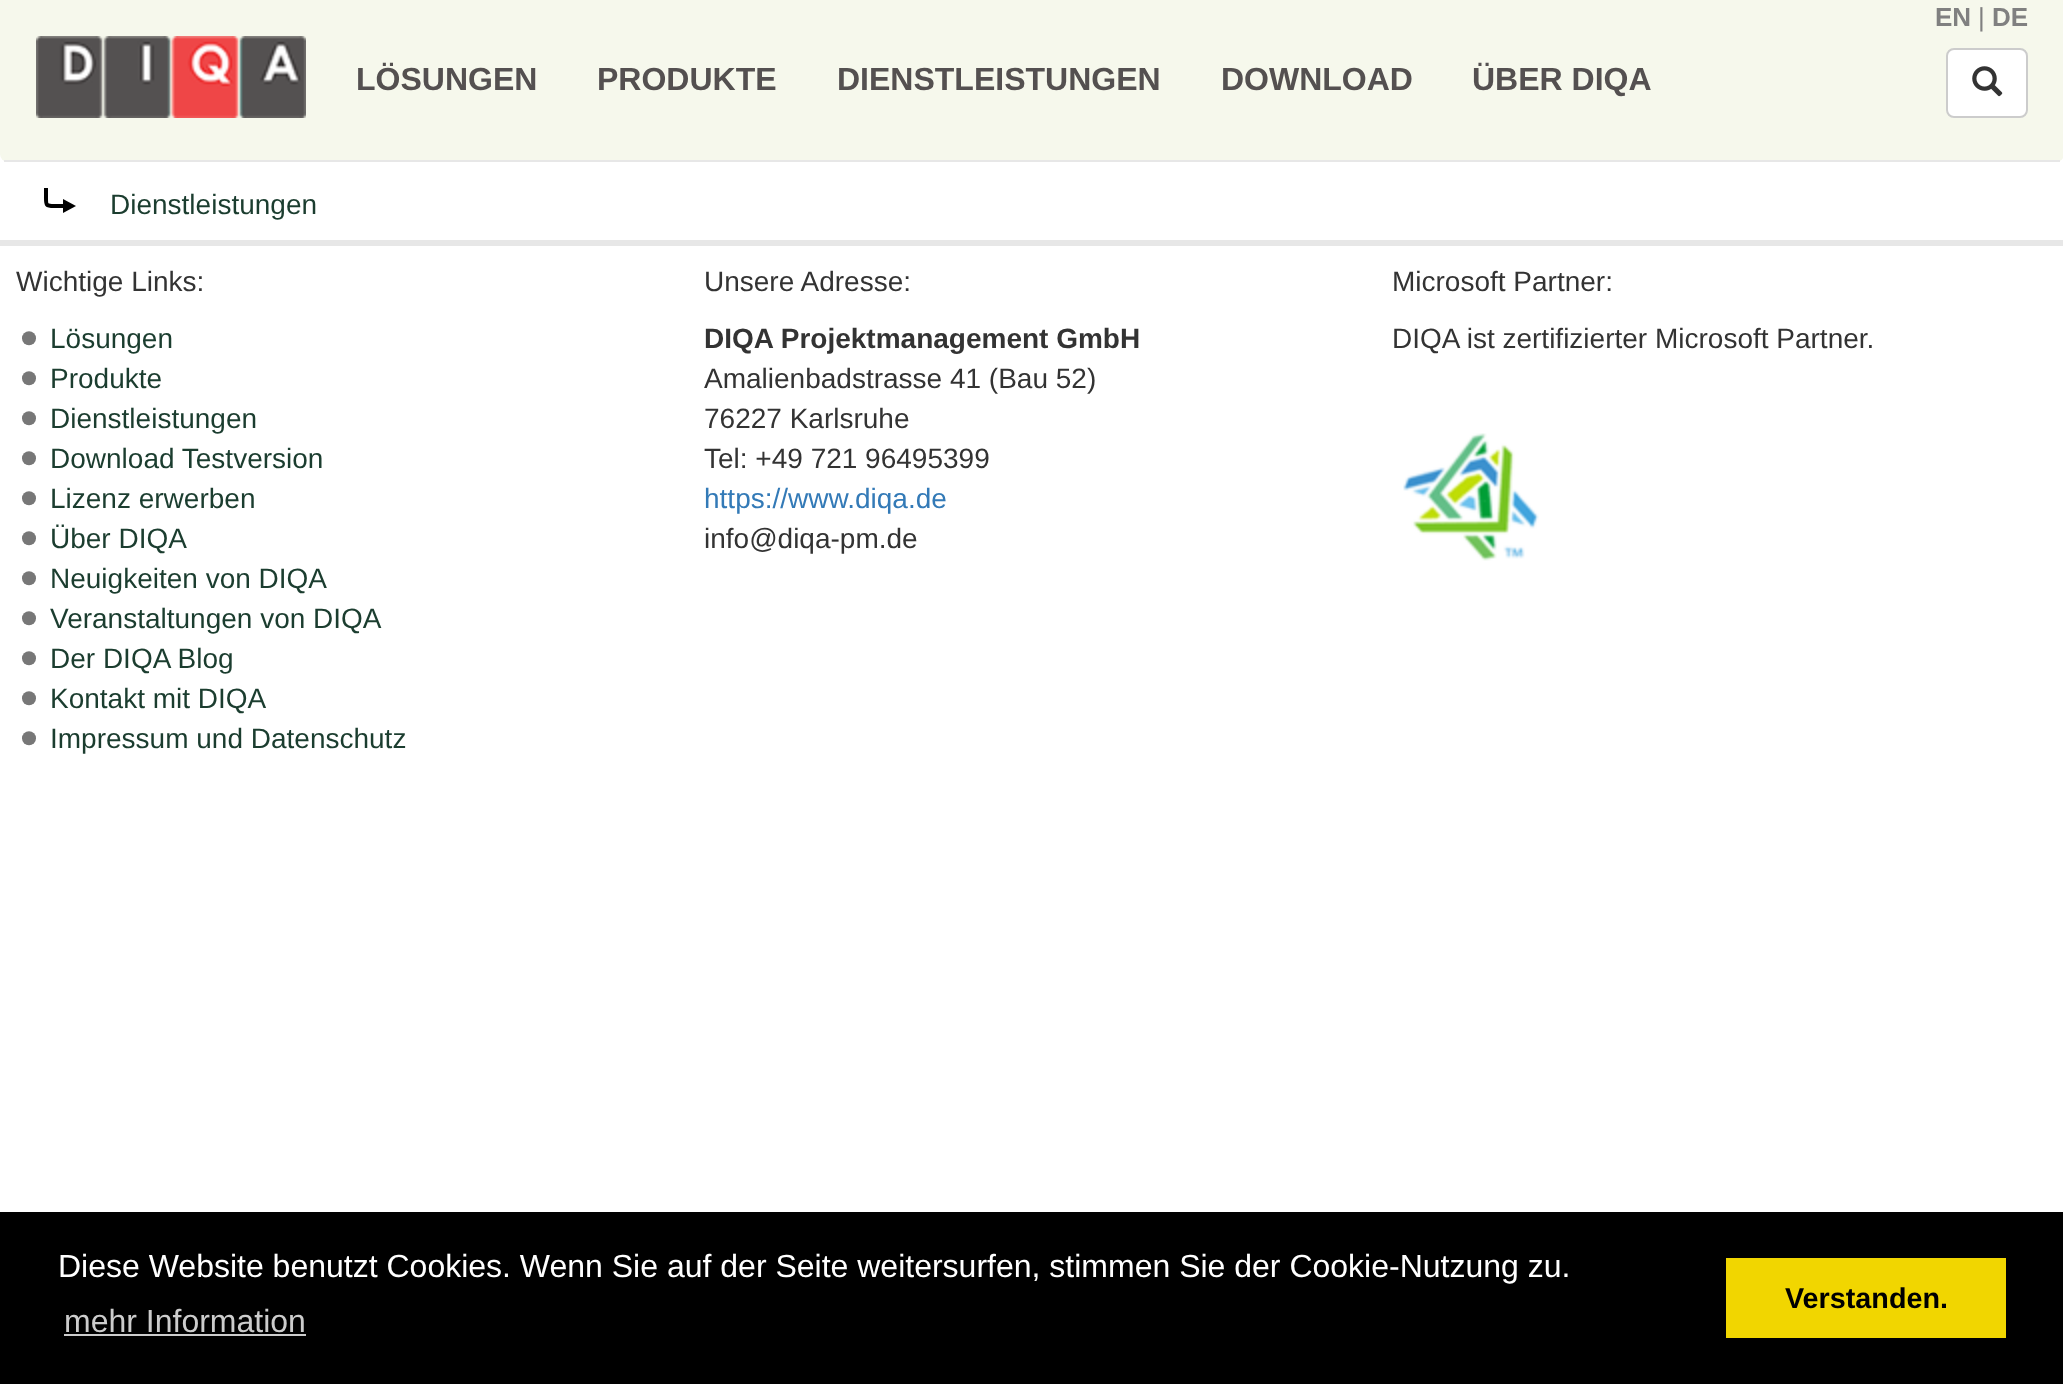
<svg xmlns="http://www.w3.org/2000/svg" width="2063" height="1384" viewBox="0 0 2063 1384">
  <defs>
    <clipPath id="clip1"><rect x="16" y="188" width="94" height="32"/></clipPath>
  </defs>
  <rect width="100%" height="100%" fill="#ffffff"/>
  <rect x="0" y="-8" width="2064" height="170" rx="8" fill="#f6f8ec"/>
  <rect x="4" y="160" width="2056" height="2" fill="#e7e7e7"/>
  <image x="36" y="36" width="270" height="82" href="img1.png"/>
  <text x="1935" y="26" font-family="Liberation Sans" font-size="26" font-weight="bold" fill="#808080">EN</text>
  <text x="1978" y="26" font-family="Liberation Sans" font-size="26" fill="#808080">|</text>
  <text x="1992" y="26" font-family="Liberation Sans" font-size="26" font-weight="bold" fill="#808080">DE</text>
  <text x="356" y="90" font-family="Liberation Sans" font-size="32" font-weight="bold" fill="#545050">LÖSUNGEN</text>
  <text x="597" y="90" font-family="Liberation Sans" font-size="32" font-weight="bold" fill="#545050">PRODUKTE</text>
  <text x="837" y="90" font-family="Liberation Sans" font-size="32" font-weight="bold" fill="#545050">DIENSTLEISTUNGEN</text>
  <text x="1221" y="90" font-family="Liberation Sans" font-size="32" font-weight="bold" fill="#545050">DOWNLOAD</text>
  <text x="1472" y="90" font-family="Liberation Sans" font-size="32" font-weight="bold" fill="#545050">ÜBER DIQA</text>
  <rect x="1947" y="49" width="80" height="68" rx="7" fill="#ffffff" stroke="#cccccc" stroke-width="2"/>
  <image x="1972" y="66" width="31" height="31" href="img2.png"/>
  <text x="110" y="214" font-family="Liberation Sans" font-size="28" fill="#1b3d2f">Dienstleistungen</text>
  <g clip-path="url(#clip1)">
    <path d="M46 185V196.5C46 205 45.5 206 54 206H68" fill="none" stroke="#000000" stroke-width="4"/>
  </g>
  <path d="M63 199V213L76 206Z" fill="#000000"/>
  <rect x="0" y="240" width="2063" height="6" fill="#e7e7e7"/>
  <text x="16" y="291" font-family="Liberation Sans" font-size="28" fill="#333333">Wichtige Links:</text>
  <image x="22" y="331" width="14" height="15" href="img3.png"/>
  <text x="50" y="348" font-family="Liberation Sans" font-size="28" fill="#1b3d2f">Lösungen</text>
  <image x="22" y="371" width="14" height="15" href="img3.png"/>
  <text x="50" y="388" font-family="Liberation Sans" font-size="28" fill="#1b3d2f">Produkte</text>
  <image x="22" y="411" width="14" height="15" href="img3.png"/>
  <text x="50" y="428" font-family="Liberation Sans" font-size="28" fill="#1b3d2f">Dienstleistungen</text>
  <image x="22" y="451" width="14" height="15" href="img3.png"/>
  <text x="50" y="468" font-family="Liberation Sans" font-size="28" fill="#1b3d2f">Download Testversion</text>
  <image x="22" y="491" width="14" height="15" href="img3.png"/>
  <text x="50" y="508" font-family="Liberation Sans" font-size="28" fill="#1b3d2f">Lizenz erwerben</text>
  <image x="22" y="531" width="14" height="15" href="img3.png"/>
  <text x="50" y="548" font-family="Liberation Sans" font-size="28" fill="#1b3d2f">Über DIQA</text>
  <image x="22" y="571" width="14" height="15" href="img3.png"/>
  <text x="50" y="588" font-family="Liberation Sans" font-size="28" fill="#1b3d2f">Neuigkeiten von DIQA</text>
  <image x="22" y="611" width="14" height="15" href="img3.png"/>
  <text x="50" y="628" font-family="Liberation Sans" font-size="28" fill="#1b3d2f">Veranstaltungen von DIQA</text>
  <image x="22" y="651" width="14" height="15" href="img3.png"/>
  <text x="50" y="668" font-family="Liberation Sans" font-size="28" fill="#1b3d2f">Der DIQA Blog</text>
  <image x="22" y="691" width="14" height="15" href="img3.png"/>
  <text x="50" y="708" font-family="Liberation Sans" font-size="28" fill="#1b3d2f">Kontakt mit DIQA</text>
  <image x="22" y="731" width="14" height="15" href="img3.png"/>
  <text x="50" y="748" font-family="Liberation Sans" font-size="28" fill="#1b3d2f">Impressum und Datenschutz</text>
  <text x="704" y="291" font-family="Liberation Sans" font-size="28" fill="#333333">Unsere Adresse:</text>
  <text x="704" y="348" font-family="Liberation Sans" font-size="28" font-weight="bold" fill="#333333">DIQA Projektmanagement GmbH</text>
  <text x="704" y="388" font-family="Liberation Sans" font-size="28" fill="#333333">Amalienbadstrasse 41 (Bau 52)</text>
  <text x="704" y="428" font-family="Liberation Sans" font-size="28" fill="#333333">76227 Karlsruhe</text>
  <text x="704" y="468" font-family="Liberation Sans" font-size="28" fill="#333333">Tel: +49 721 96495399</text>
  <text x="704" y="508" font-family="Liberation Sans" font-size="28" fill="#337ab7">https://www.diqa.de</text>
  <text x="704" y="548" font-family="Liberation Sans" font-size="28" fill="#333333">info@diqa-pm.de</text>
  <text x="1392" y="291" font-family="Liberation Sans" font-size="28" fill="#333333">Microsoft Partner:</text>
  <text x="1392" y="348" font-family="Liberation Sans" font-size="28" fill="#333333">DIQA ist zertifizierter Microsoft Partner.</text>
  <image x="1403" y="433" width="136" height="128" href="img4.png"/>
  <rect x="0" y="1212" width="2063" height="172" fill="#000000"/>
  <text x="58" y="1277" font-family="Liberation Sans" font-size="32" fill="#ffffff">Diese Website benutzt Cookies. Wenn Sie auf der Seite weitersurfen, stimmen Sie der Cookie-Nutzung zu.</text>
  <text x="64" y="1332" font-family="Liberation Sans" font-size="32" fill="#cccccc">mehr Information</text>
  <rect x="64" y="1334" width="242" height="2" fill="#cccccc"/>
  <rect x="1726" y="1258" width="280" height="80" fill="#f1d600"/>
  <text x="1785" y="1308" font-family="Liberation Sans" font-size="28.75" font-weight="bold" fill="#000000">Verstanden.</text>
</svg>
